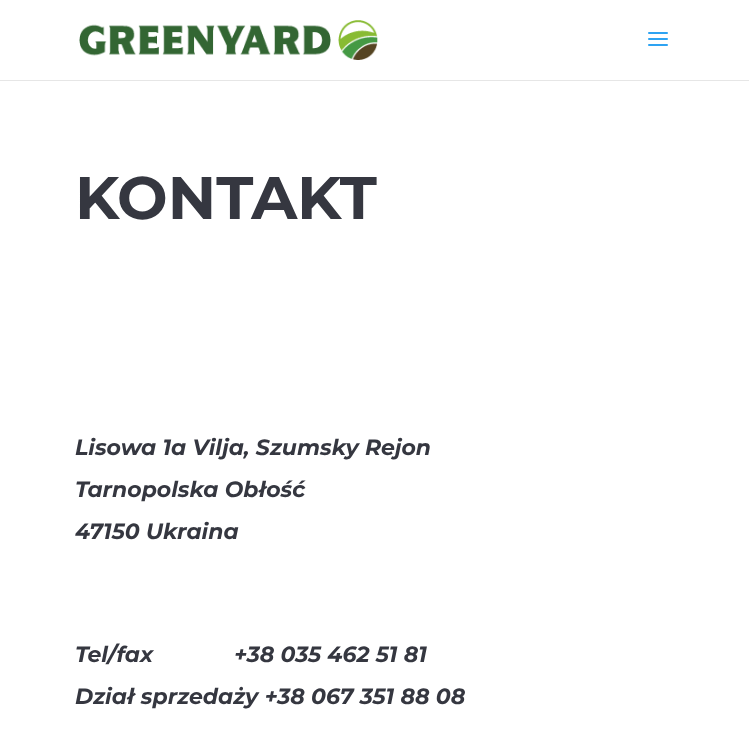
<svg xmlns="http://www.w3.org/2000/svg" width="749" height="740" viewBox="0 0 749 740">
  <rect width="100%" height="100%" fill="#ffffff"/>
  <rect x="0" y="80" width="749" height="1" fill="#e6e6e6"/>
  <image x="79" y="20" width="299" height="40" href="img1.png"/>
  <image x="648" y="32" width="20" height="14" href="img2.png"/>
  <text x="75" y="219" font-family="Montserrat" font-size="60" font-weight="bold" fill="#353740">KONTAKT</text>
  <text x="75" y="455" font-family="Montserrat" font-size="22" font-weight="bold" font-style="italic" fill="#353740">Lisowa 1a Vilja, Szumsky Rejon</text>
  <text x="75" y="497" font-family="Montserrat" font-size="22" font-weight="bold" font-style="italic" fill="#353740">Tarnopolska Obłość</text>
  <text x="75" y="539" font-family="Montserrat" font-size="22" font-weight="bold" font-style="italic" fill="#353740">47150 Ukraina</text>
  <text x="75" y="662" font-family="Montserrat" font-size="22" font-weight="bold" font-style="italic" fill="#353740" xml:space="preserve">Tel/fax             +38 035 462 51 81</text>
  <text x="75" y="704" font-family="Montserrat" font-size="22" font-weight="bold" font-style="italic" fill="#353740">Dział sprzedaży +38 067 351 88 08</text>
</svg>
